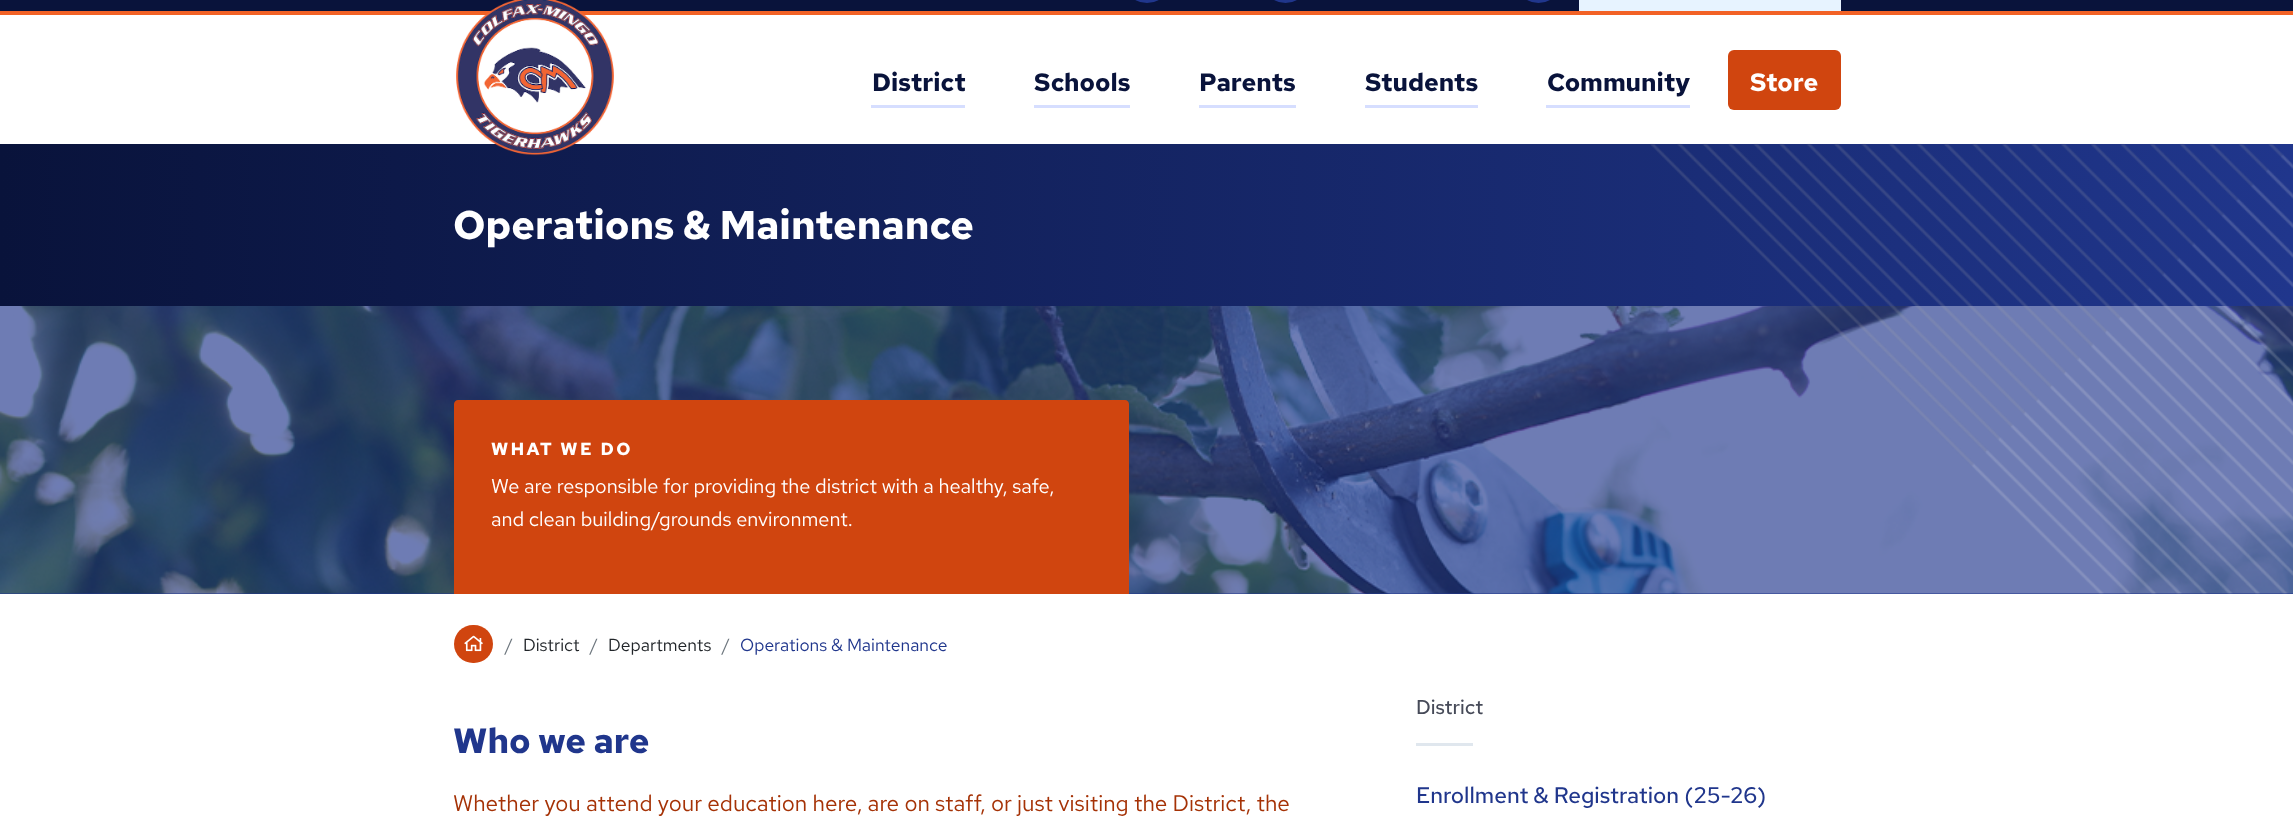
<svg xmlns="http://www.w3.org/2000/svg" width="2293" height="816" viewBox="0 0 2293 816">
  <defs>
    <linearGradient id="g1" gradientUnits="userSpaceOnUse" x1="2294" y1="369" x2="0" y2="369"><stop offset="0" stop-color="#20368c"/><stop offset="1" stop-color="#09133b"/></linearGradient>
  </defs>
  <rect width="100%" height="100%" fill="#ffffff"/>
  <rect x="0" y="0" width="2293" height="11" fill="#09133b"/>
  <rect x="0" y="11" width="2293" height="4" fill="#f26226"/>
  <rect x="1131" y="-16" width="32" height="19" rx="16" fill="#20368c"/>
  <rect x="1270" y="-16" width="31" height="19" rx="15.5" fill="#20368c"/>
  <rect x="1523" y="-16" width="31" height="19" rx="15.5" fill="#20368c"/>
  <rect x="1579" y="0" width="262" height="11" fill="#e7f3ff"/>
  <rect x="0" y="144" width="2293" height="162" fill="url(#g1)"/>
  <image x="456" y="0" width="158" height="156" href="img1.png"/>
  <text x="872" y="91" font-family="Red Hat Text" font-size="25" font-weight="bold" fill="#09133b">District</text>
  <rect x="871" y="105" width="94" height="3" fill="#d6deff"/>
  <text x="1034" y="91" font-family="Red Hat Text" font-size="25" font-weight="bold" fill="#09133b">Schools</text>
  <rect x="1034" y="105" width="96" height="3" fill="#d6deff"/>
  <text x="1199" y="91" font-family="Red Hat Text" font-size="25" font-weight="bold" fill="#09133b">Parents</text>
  <rect x="1199" y="105" width="97" height="3" fill="#d6deff"/>
  <text x="1365" y="91" font-family="Red Hat Text" font-size="25" font-weight="bold" fill="#09133b">Students</text>
  <rect x="1365" y="105" width="113" height="3" fill="#d6deff"/>
  <text x="1547" y="91" font-family="Red Hat Text" font-size="25" font-weight="bold" fill="#09133b">Community</text>
  <rect x="1546" y="105" width="144" height="3" fill="#d6deff"/>
  <rect x="1728" y="50" width="113" height="60" rx="6" fill="#d0450f"/>
  <text x="1750" y="91" font-family="Red Hat Text" font-size="25" font-weight="bold" fill="#ffffff">Store</text>
  <text x="453" y="239" font-family="Red Hat Text" font-size="40" font-weight="bold" fill="#ffffff">Operations &amp; Maintenance</text>
  <rect x="0" y="593" width="2293" height="1" fill="#20368c"/>
  <image x="0" y="306" width="2293" height="288" href="img3.png"/>
  <image x="1650" y="143" width="643" height="451" href="img2.png"/>
  <path d="M458 400H1125C1127 400 1129 402 1129 404V594H454V404C454 402 456 400 458 400Z" fill="#d0450f"/>
  <text x="491" y="455" font-family="Red Hat Text" font-size="17.5" font-weight="bold" letter-spacing="2.5" fill="#ffffff">WHAT WE DO</text>
  <text x="491" y="493" font-family="Red Hat Text" font-size="20" fill="#ffffff">We are responsible for providing the district with a healthy, safe,</text>
  <text x="491" y="526" font-family="Red Hat Text" font-size="20" fill="#ffffff">and clean building/grounds environment.</text>
  <rect x="454" y="625" width="39" height="38" rx="19" fill="#d0450f"/>
  <image x="464" y="635" width="19" height="17" href="img4.png"/>
  <text x="505" y="651" font-family="Red Hat Text" font-size="17.5" fill="#6c757d">/</text>
  <text x="523" y="651" font-family="Red Hat Text" font-size="17.5" fill="#212529">District</text>
  <text x="590" y="651" font-family="Red Hat Text" font-size="17.5" fill="#6c757d">/</text>
  <text x="608" y="651" font-family="Red Hat Text" font-size="17.5" fill="#212529">Departments</text>
  <text x="722" y="651" font-family="Red Hat Text" font-size="17.5" fill="#6c757d">/</text>
  <text x="740" y="651" font-family="Red Hat Text" font-size="17.5" fill="#20368c">Operations &amp; Maintenance</text>
  <text x="453" y="753" font-family="Red Hat Text" font-size="35" font-weight="bold" fill="#20368c">Who we are</text>
  <text x="453" y="811" font-family="Red Hat Text" font-size="22.5" fill="#a53206">Whether you attend your education here, are on staff, or just visiting the District, the</text>
  <text x="1416" y="714" font-family="Red Hat Text" font-size="20" font-weight="500" fill="#464a58">District</text>
  <rect x="1416" y="743" width="57" height="3" fill="#e0e7ee"/>
  <text x="1416" y="803" font-family="Red Hat Text" font-size="22.5" font-weight="500" fill="#20368c">Enrollment &amp; Registration (25-26)</text>
</svg>
